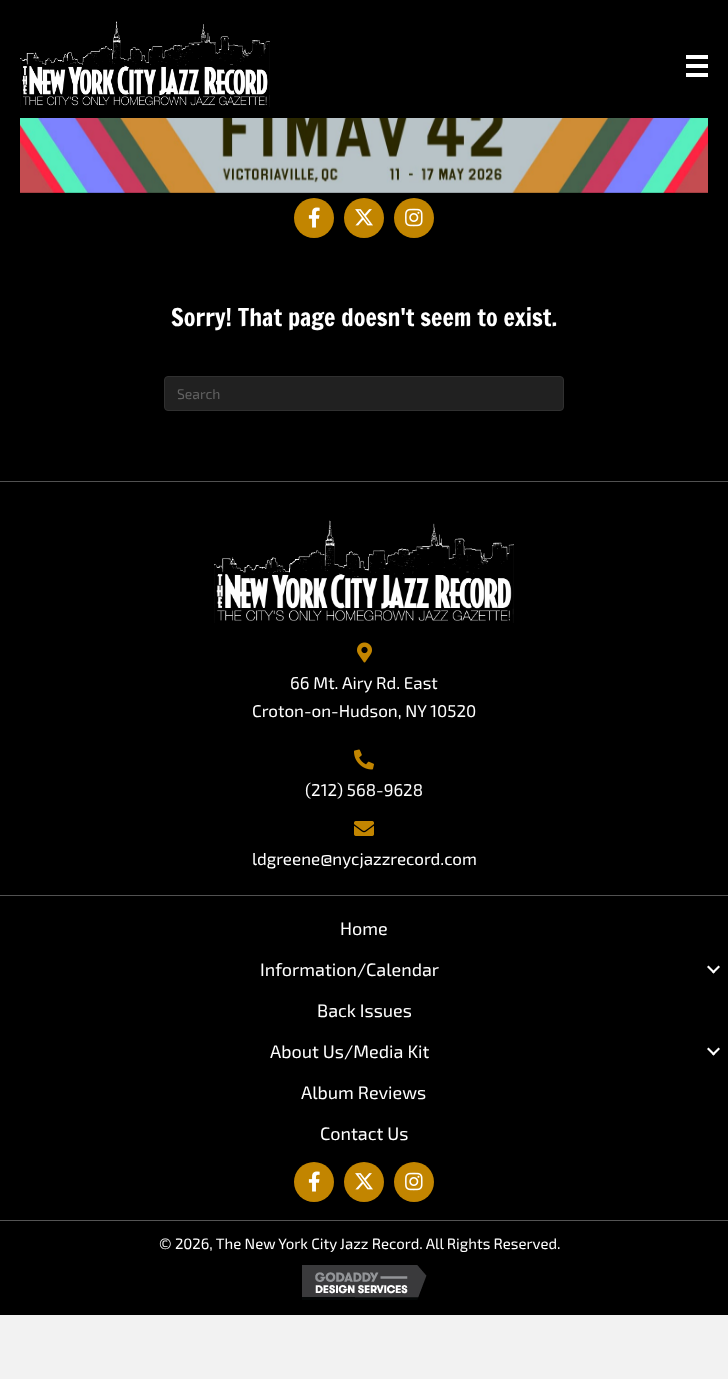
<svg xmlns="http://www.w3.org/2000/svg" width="728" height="1379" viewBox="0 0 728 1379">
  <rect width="100%" height="100%" fill="#f2f2f2"/>
  <rect x="0" y="0" width="728" height="481" fill="#000000"/>
  <image x="20" y="21" width="250" height="86" href="img1.png"/>
  <rect x="686" y="55" width="22" height="4" fill="#ffffff"/>
  <rect x="686" y="64" width="22" height="4" fill="#ffffff"/>
  <rect x="686" y="73" width="22" height="4" fill="#ffffff"/>
  <image x="20" y="118" width="688" height="75" href="img2.png"/>
  <circle cx="314" cy="218" r="20" fill="#c28500"/>
  <image x="308" y="207" width="12" height="21" href="img3.png"/>
  <circle cx="364" cy="218" r="20" fill="#c28500"/>
  <image x="355" y="209" width="18" height="17" href="img4.png"/>
  <circle cx="414" cy="218" r="20" fill="#c28500"/>
  <image x="405" y="208" width="18" height="19" href="img5.png"/>
  <text x="171" y="326" font-family="Francois One" font-size="24" fill="#ffffff">Sorry! That page doesn't seem to exist.</text>
  <rect x="164.5" y="376.5" width="399" height="34" rx="3.5" fill="#212121" stroke="#303030"/>
  <text x="177" y="399" font-family="'Exo 2'" font-size="14" fill="#626262">Search</text>
  <rect x="0" y="482" width="728" height="413" fill="#000000"/>
  <rect x="0" y="481" width="728" height="1" fill="#515151"/>
  <rect x="0" y="895" width="728" height="1" fill="#515151"/>
  <image x="214" y="520" width="300" height="103" href="img6.png"/>
  <image x="357" y="642" width="15" height="21" href="img7.png"/>
  <text x="290" y="689" font-family="'Exo 2'" font-size="17" fill="#ffffff">66 Mt. Airy Rd. East</text>
  <text x="252" y="717" font-family="'Exo 2'" font-size="17" fill="#ffffff">Croton-on-Hudson, NY 10520</text>
  <image x="354" y="749" width="20" height="21" href="img8.png"/>
  <text x="305" y="796" font-family="'Exo 2'" font-size="17" fill="#ffffff">(212) 568-9628</text>
  <image x="354" y="821" width="20" height="15" href="img9.png"/>
  <text x="252" y="865" font-family="'Exo 2'" font-size="17" fill="#ffffff">ldgreene@nycjazzrecord.com</text>
  <rect x="0" y="896" width="728" height="324" fill="#000000"/>
  <text x="340" y="935" font-family="'Exo 2'" font-size="18" fill="#ffffff">Home</text>
  <text x="260" y="976" font-family="'Exo 2'" font-size="18" fill="#ffffff">Information/Calendar</text>
  <path d="M718.5 965.5L720 967L713.5 973.5L712 972Z" fill="#ffffff"/>
  <path d="M708.5 965.5L715 972L713.5 973.5L707 967Z" fill="#ffffff"/>
  <text x="317" y="1017" font-family="'Exo 2'" font-size="18" fill="#ffffff">Back Issues</text>
  <text x="270" y="1058" font-family="'Exo 2'" font-size="18" fill="#ffffff">About Us/Media Kit</text>
  <path d="M718.5 1047.5L720 1049L713.5 1055.5L712 1054Z" fill="#ffffff"/>
  <path d="M708.5 1047.5L715 1054L713.5 1055.5L707 1049Z" fill="#ffffff"/>
  <text x="301" y="1099" font-family="'Exo 2'" font-size="18" fill="#ffffff">Album Reviews</text>
  <text x="320" y="1140" font-family="'Exo 2'" font-size="18" fill="#ffffff">Contact Us</text>
  <circle cx="314" cy="1182" r="20" fill="#c28500"/>
  <image x="308" y="1171" width="12" height="21" href="img3.png"/>
  <circle cx="364" cy="1182" r="20" fill="#c28500"/>
  <image x="355" y="1173" width="18" height="17" href="img4.png"/>
  <circle cx="414" cy="1182" r="20" fill="#c28500"/>
  <image x="405" y="1172" width="18" height="19" href="img5.png"/>
  <rect x="0" y="1221" width="728" height="94" fill="#000000"/>
  <rect x="0" y="1220" width="728" height="1" fill="#545454"/>
  <text x="159" y="1249" font-family="'Exo 2'" font-size="15" fill="#ffffff">© 2026, The New York City Jazz Record. All Rights Reserved.</text>
  <image x="302" y="1265" width="125" height="35" href="img10.png"/>
</svg>
